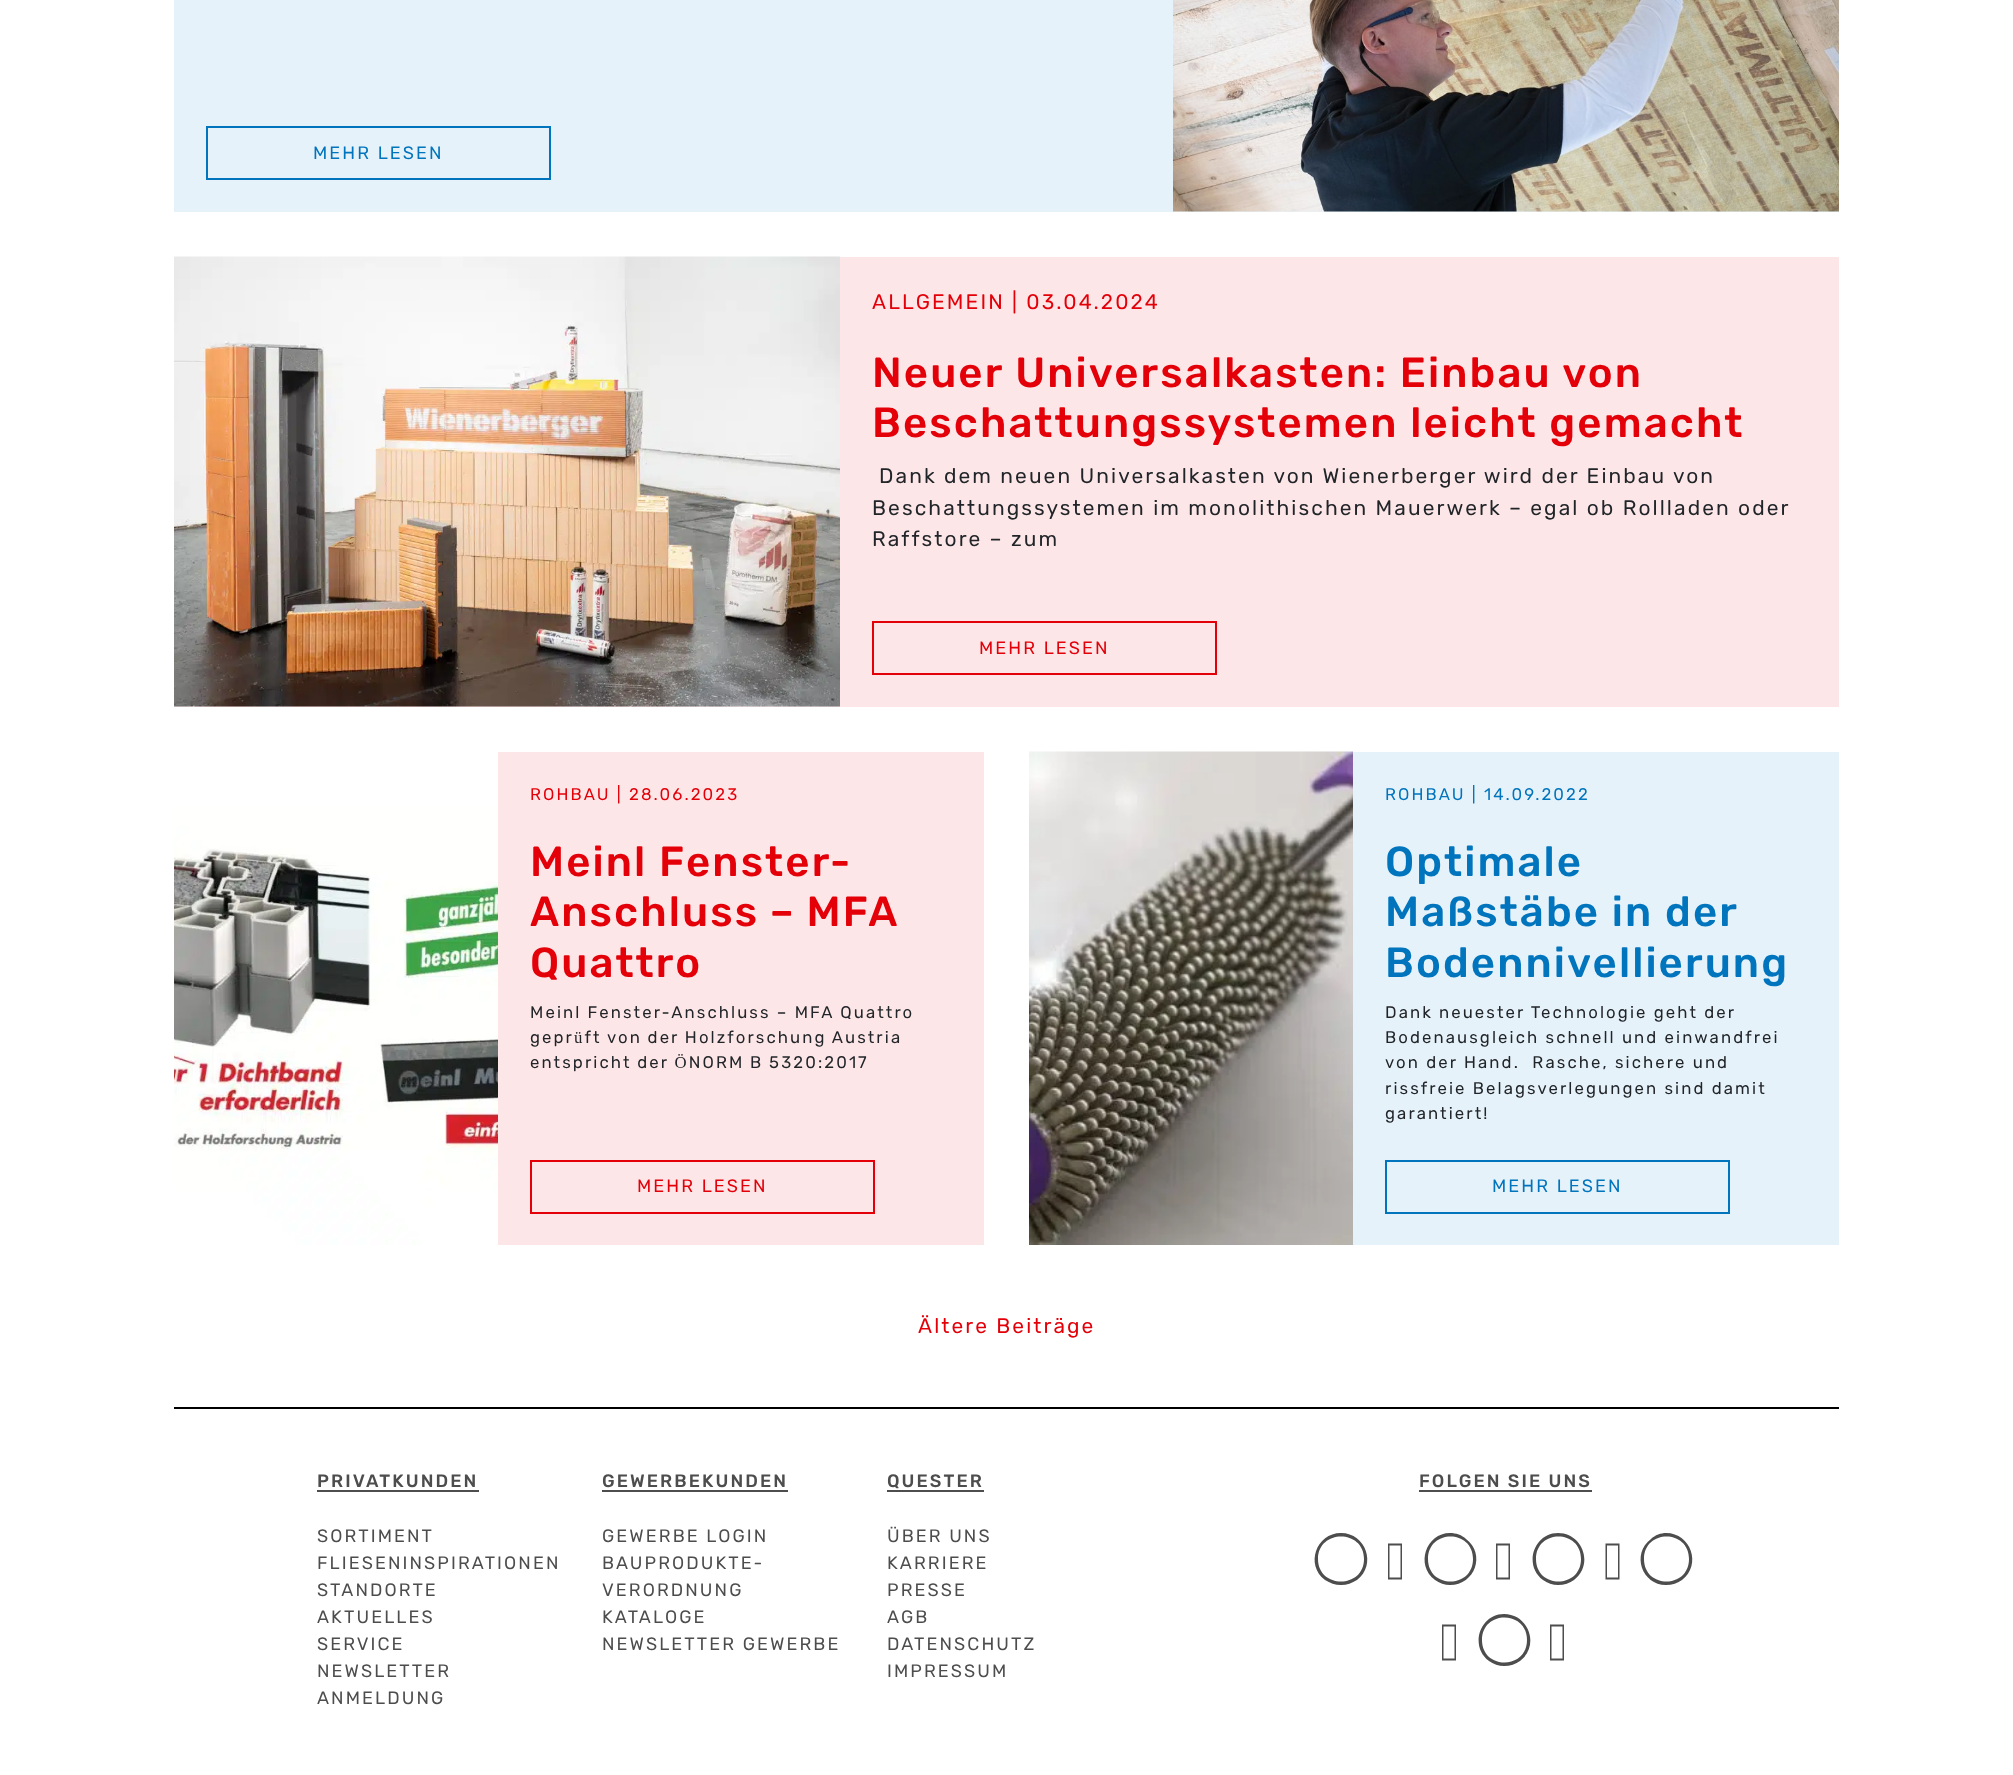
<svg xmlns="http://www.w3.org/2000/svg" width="2013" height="1775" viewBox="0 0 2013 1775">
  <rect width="100%" height="100%" fill="#ffffff"/>
  <rect x="174" y="0" width="1665" height="212" fill="#e6f2f9"/>
  <rect x="207" y="127" width="343" height="52" fill="none" stroke="#0074bd" stroke-width="2"/>
  <text x="313" y="159" font-family="Rubik" font-size="18" letter-spacing="2.1" fill="#0074bd">MEHR LESEN</text>
  <image x="1173" y="0" width="666" height="212" href="img1.png"/>
  <rect x="174" y="257" width="1665" height="450" fill="#fde6e7"/>
  <image x="174" y="256" width="666" height="451" href="img2.png"/>
  <text x="872" y="309" font-family="Rubik" font-size="21" letter-spacing="2.1" fill="#e30009">ALLGEMEIN | 03.04.2024</text>
  <text x="872" y="387" font-family="Rubik" font-size="42" font-weight="500" letter-spacing="2.1" fill="#e30009">Neuer Universalkasten: Einbau von</text>
  <text x="872" y="437" font-family="Rubik" font-size="42" font-weight="500" letter-spacing="2.1" fill="#e30009">Beschattungssystemen leicht gemacht</text>
  <text x="879" y="483" font-family="Rubik" font-size="21" letter-spacing="2.1" fill="#212529">Dank dem neuen Universalkasten von Wienerberger wird der Einbau von</text>
  <text x="872" y="515" font-family="Rubik" font-size="21" letter-spacing="2.1" fill="#212529">Beschattungssystemen im monolithischen Mauerwerk – egal ob Rollladen oder</text>
  <text x="872" y="546" font-family="Rubik" font-size="21" letter-spacing="2.1" fill="#212529">Raffstore – zum</text>
  <rect x="873" y="622" width="343" height="52" fill="none" stroke="#e30009" stroke-width="2"/>
  <text x="979" y="654" font-family="Rubik" font-size="18" letter-spacing="2.1" fill="#e30009">MEHR LESEN</text>
  <rect x="498" y="752" width="486" height="493" fill="#fde6e7"/>
  <image x="174" y="752" width="324" height="493" href="img3.png"/>
  <text x="530" y="800" font-family="Rubik" font-size="16.8" letter-spacing="2.1" fill="#e30009">ROHBAU | 28.06.2023</text>
  <text x="530" y="876" font-family="Rubik" font-size="42" font-weight="500" letter-spacing="2.1" fill="#e30009">Meinl Fenster-</text>
  <text x="530" y="926" word-spacing="-1" font-family="Rubik" font-size="42" font-weight="500" letter-spacing="2.1" fill="#e30009">Anschluss – MFA</text>
  <text x="530" y="977" font-family="Rubik" font-size="42" font-weight="500" letter-spacing="2.1" fill="#e30009">Quattro</text>
  <text x="530" y="1018" font-family="Rubik" font-size="16.8" letter-spacing="2.1" fill="#212529">Meinl Fenster-Anschluss – MFA Quattro</text>
  <text x="530" y="1043" word-spacing="-0.5" font-family="Rubik" font-size="16.8" letter-spacing="2.1" fill="#212529">geprüft von der Holzforschung Austria</text>
  <text x="530" y="1068" word-spacing="-0.5" font-family="Rubik" font-size="16.8" letter-spacing="2.1" fill="#212529">entspricht der ÖNORM B 5320:2017</text>
  <rect x="531" y="1161" width="343" height="52" fill="none" stroke="#e30009" stroke-width="2"/>
  <text x="637" y="1192" font-family="Rubik" font-size="18" letter-spacing="2.1" fill="#e30009">MEHR LESEN</text>
  <rect x="1353" y="752" width="486" height="493" fill="#e6f2f9"/>
  <image x="1029" y="751" width="324" height="494" href="img4.png"/>
  <text x="1385" y="800" font-family="Rubik" font-size="16.8" letter-spacing="2.1" fill="#0074bd">ROHBAU | 14.09.2022</text>
  <text x="1385" y="876" font-family="Rubik" font-size="42" font-weight="500" letter-spacing="2.1" fill="#0074bd">Optimale</text>
  <text x="1385" y="926" font-family="Rubik" font-size="42" font-weight="500" letter-spacing="2.1" fill="#0074bd">Maßstäbe in der</text>
  <text x="1385" y="977" font-family="Rubik" font-size="42" font-weight="500" letter-spacing="2.1" fill="#0074bd">Bodennivellierung</text>
  <text x="1385" y="1018" font-family="Rubik" font-size="16.8" letter-spacing="2.1" fill="#212529">Dank neuester Technologie geht der</text>
  <text x="1385" y="1043" font-family="Rubik" font-size="16.8" letter-spacing="2.1" fill="#212529">Bodenausgleich schnell und einwandfrei</text>
  <text x="1385" y="1068" font-family="Rubik" font-size="16.8" letter-spacing="2.1" fill="#212529" xml:space="preserve">von der Hand.  Rasche, sichere und</text>
  <text x="1385" y="1094" font-family="Rubik" font-size="16.8" letter-spacing="2.1" fill="#212529">rissfreie Belagsverlegungen sind damit</text>
  <text x="1385" y="1119" font-family="Rubik" font-size="16.8" letter-spacing="2.1" fill="#212529">garantiert!</text>
  <rect x="1386" y="1161" width="343" height="52" fill="none" stroke="#0074bd" stroke-width="2"/>
  <text x="1492" y="1192" font-family="Rubik" font-size="18" letter-spacing="2.1" fill="#0074bd">MEHR LESEN</text>
  <text x="918" y="1333" font-family="Rubik" font-size="21" letter-spacing="2.1" fill="#e30009">Ältere Beiträge</text>
  <rect x="174" y="1407" width="1665" height="2" fill="#000000"/>
  <text x="317" y="1487" font-family="Rubik" font-size="18" font-weight="500" letter-spacing="2.1" fill="#4d4d4d">PRIVATKUNDEN</text>
  <rect x="317" y="1490" width="162" height="2" fill="#4d4d4d"/>
  <text x="317" y="1542" font-family="Rubik" font-size="18" letter-spacing="2.1" fill="#4d4d4d">SORTIMENT</text>
  <text x="317" y="1569" font-family="Rubik" font-size="18" letter-spacing="2.1" fill="#4d4d4d">FLIESENINSPIRATIONEN</text>
  <text x="317" y="1596" font-family="Rubik" font-size="18" letter-spacing="2.1" fill="#4d4d4d">STANDORTE</text>
  <text x="317" y="1623" font-family="Rubik" font-size="18" letter-spacing="2.1" fill="#4d4d4d">AKTUELLES</text>
  <text x="317" y="1650" font-family="Rubik" font-size="18" letter-spacing="2.1" fill="#4d4d4d">SERVICE</text>
  <text x="317" y="1677" font-family="Rubik" font-size="18" letter-spacing="2.1" fill="#4d4d4d">NEWSLETTER</text>
  <text x="317" y="1704" font-family="Rubik" font-size="18" letter-spacing="2.1" fill="#4d4d4d">ANMELDUNG</text>
  <text x="602" y="1487" font-family="Rubik" font-size="18" font-weight="500" letter-spacing="2.1" fill="#4d4d4d">GEWERBEKUNDEN</text>
  <rect x="602" y="1490" width="186" height="2" fill="#4d4d4d"/>
  <text x="602" y="1542" font-family="Rubik" font-size="18" letter-spacing="2.1" fill="#4d4d4d">GEWERBE LOGIN</text>
  <text x="602" y="1569" font-family="Rubik" font-size="18" letter-spacing="2.1" fill="#4d4d4d">BAUPRODUKTE-</text>
  <text x="602" y="1596" font-family="Rubik" font-size="18" letter-spacing="2.1" fill="#4d4d4d">VERORDNUNG</text>
  <text x="602" y="1623" font-family="Rubik" font-size="18" letter-spacing="2.1" fill="#4d4d4d">KATALOGE</text>
  <text x="602" y="1650" font-family="Rubik" font-size="18" letter-spacing="2.1" fill="#4d4d4d">NEWSLETTER GEWERBE</text>
  <text x="887" y="1487" font-family="Rubik" font-size="18" font-weight="500" letter-spacing="2.1" fill="#4d4d4d">QUESTER</text>
  <rect x="887" y="1490" width="97" height="2" fill="#4d4d4d"/>
  <text x="887" y="1542" font-family="Rubik" font-size="18" letter-spacing="2.1" fill="#4d4d4d">ÜBER UNS</text>
  <text x="887" y="1569" font-family="Rubik" font-size="18" letter-spacing="2.1" fill="#4d4d4d">KARRIERE</text>
  <text x="887" y="1596" font-family="Rubik" font-size="18" letter-spacing="2.1" fill="#4d4d4d">PRESSE</text>
  <text x="887" y="1623" font-family="Rubik" font-size="18" letter-spacing="2.1" fill="#4d4d4d">AGB</text>
  <text x="887" y="1650" font-family="Rubik" font-size="18" letter-spacing="2.1" fill="#4d4d4d">DATENSCHUTZ</text>
  <text x="887" y="1677" font-family="Rubik" font-size="18" letter-spacing="2.1" fill="#4d4d4d">IMPRESSUM</text>
  <text x="1419" y="1487" font-family="Rubik" font-size="18" font-weight="500" letter-spacing="2.1" fill="#4d4d4d">FOLGEN SIE UNS</text>
  <rect x="1419" y="1490" width="173" height="2" fill="#4d4d4d"/>
  <path d="M1341 1533C1316 1533 1305 1565 1325 1580C1330 1583 1335 1585 1341 1585C1347 1585 1352 1583 1357 1580C1377 1565 1366 1533 1341 1533ZM1364 1559C1364 1589 1318 1589 1318 1559C1318 1529 1364 1529 1364 1559Z" fill="#4d4d4d"/>
  <path d="M1388 1579.5V1543.5H1402V1579.5ZM1389.5 1577.5H1400.5V1545.5H1389.5Z" fill="#4d4d4d"/>
  <path d="M1450 1533C1426 1533 1415 1565 1435 1580C1439 1583 1445 1585 1450 1585C1475 1585 1486 1554 1466 1539C1462 1535 1456 1533 1450 1533ZM1473 1559C1473 1589 1428 1589 1428 1559C1428 1529 1473 1529 1473 1559Z" fill="#4d4d4d"/>
  <path d="M1496 1579.5V1543.5H1510V1579.5ZM1497.5 1577.5H1508.5V1545.5H1497.5Z" fill="#4d4d4d"/>
  <path d="M1666 1533C1661 1533 1655 1535 1651 1539C1631 1554 1642 1585 1666 1585C1672 1585 1678 1583 1682 1580C1702 1565 1691 1533 1666 1533ZM1689 1559C1689 1589 1644 1589 1644 1559C1644 1529 1689 1529 1689 1559Z" fill="#4d4d4d"/>
  <path d="M1442 1660.5V1624.5H1456V1660.5ZM1443.5 1658.5H1454.5V1626.5H1443.5Z" fill="#4d4d4d"/>
  <path d="M1558 1533C1534 1533 1523 1565 1543 1580C1547 1583 1553 1585 1558 1585C1564 1585 1570 1583 1574 1580C1594 1565 1583 1533 1558 1533ZM1581 1559C1581 1589 1536 1589 1536 1559C1536 1529 1581 1529 1581 1559Z" fill="#4d4d4d"/>
  <path d="M1605.5 1579.5V1543.5H1619.5V1579.5ZM1607 1577.5H1618V1545.5H1607Z" fill="#4d4d4d"/>
  <path d="M1504 1614C1480 1614 1469 1646 1489 1661C1493 1664 1499 1666 1504 1666C1510 1666 1516 1664 1520 1661C1540 1646 1529 1614 1504 1614ZM1527 1640C1527 1670 1482 1670 1482 1640C1482 1610 1527 1610 1527 1640Z" fill="#4d4d4d"/>
  <path d="M1550 1660.5V1624.5H1564V1660.5ZM1551.5 1658.5H1562.5V1626.5H1551.5Z" fill="#4d4d4d"/>
</svg>
